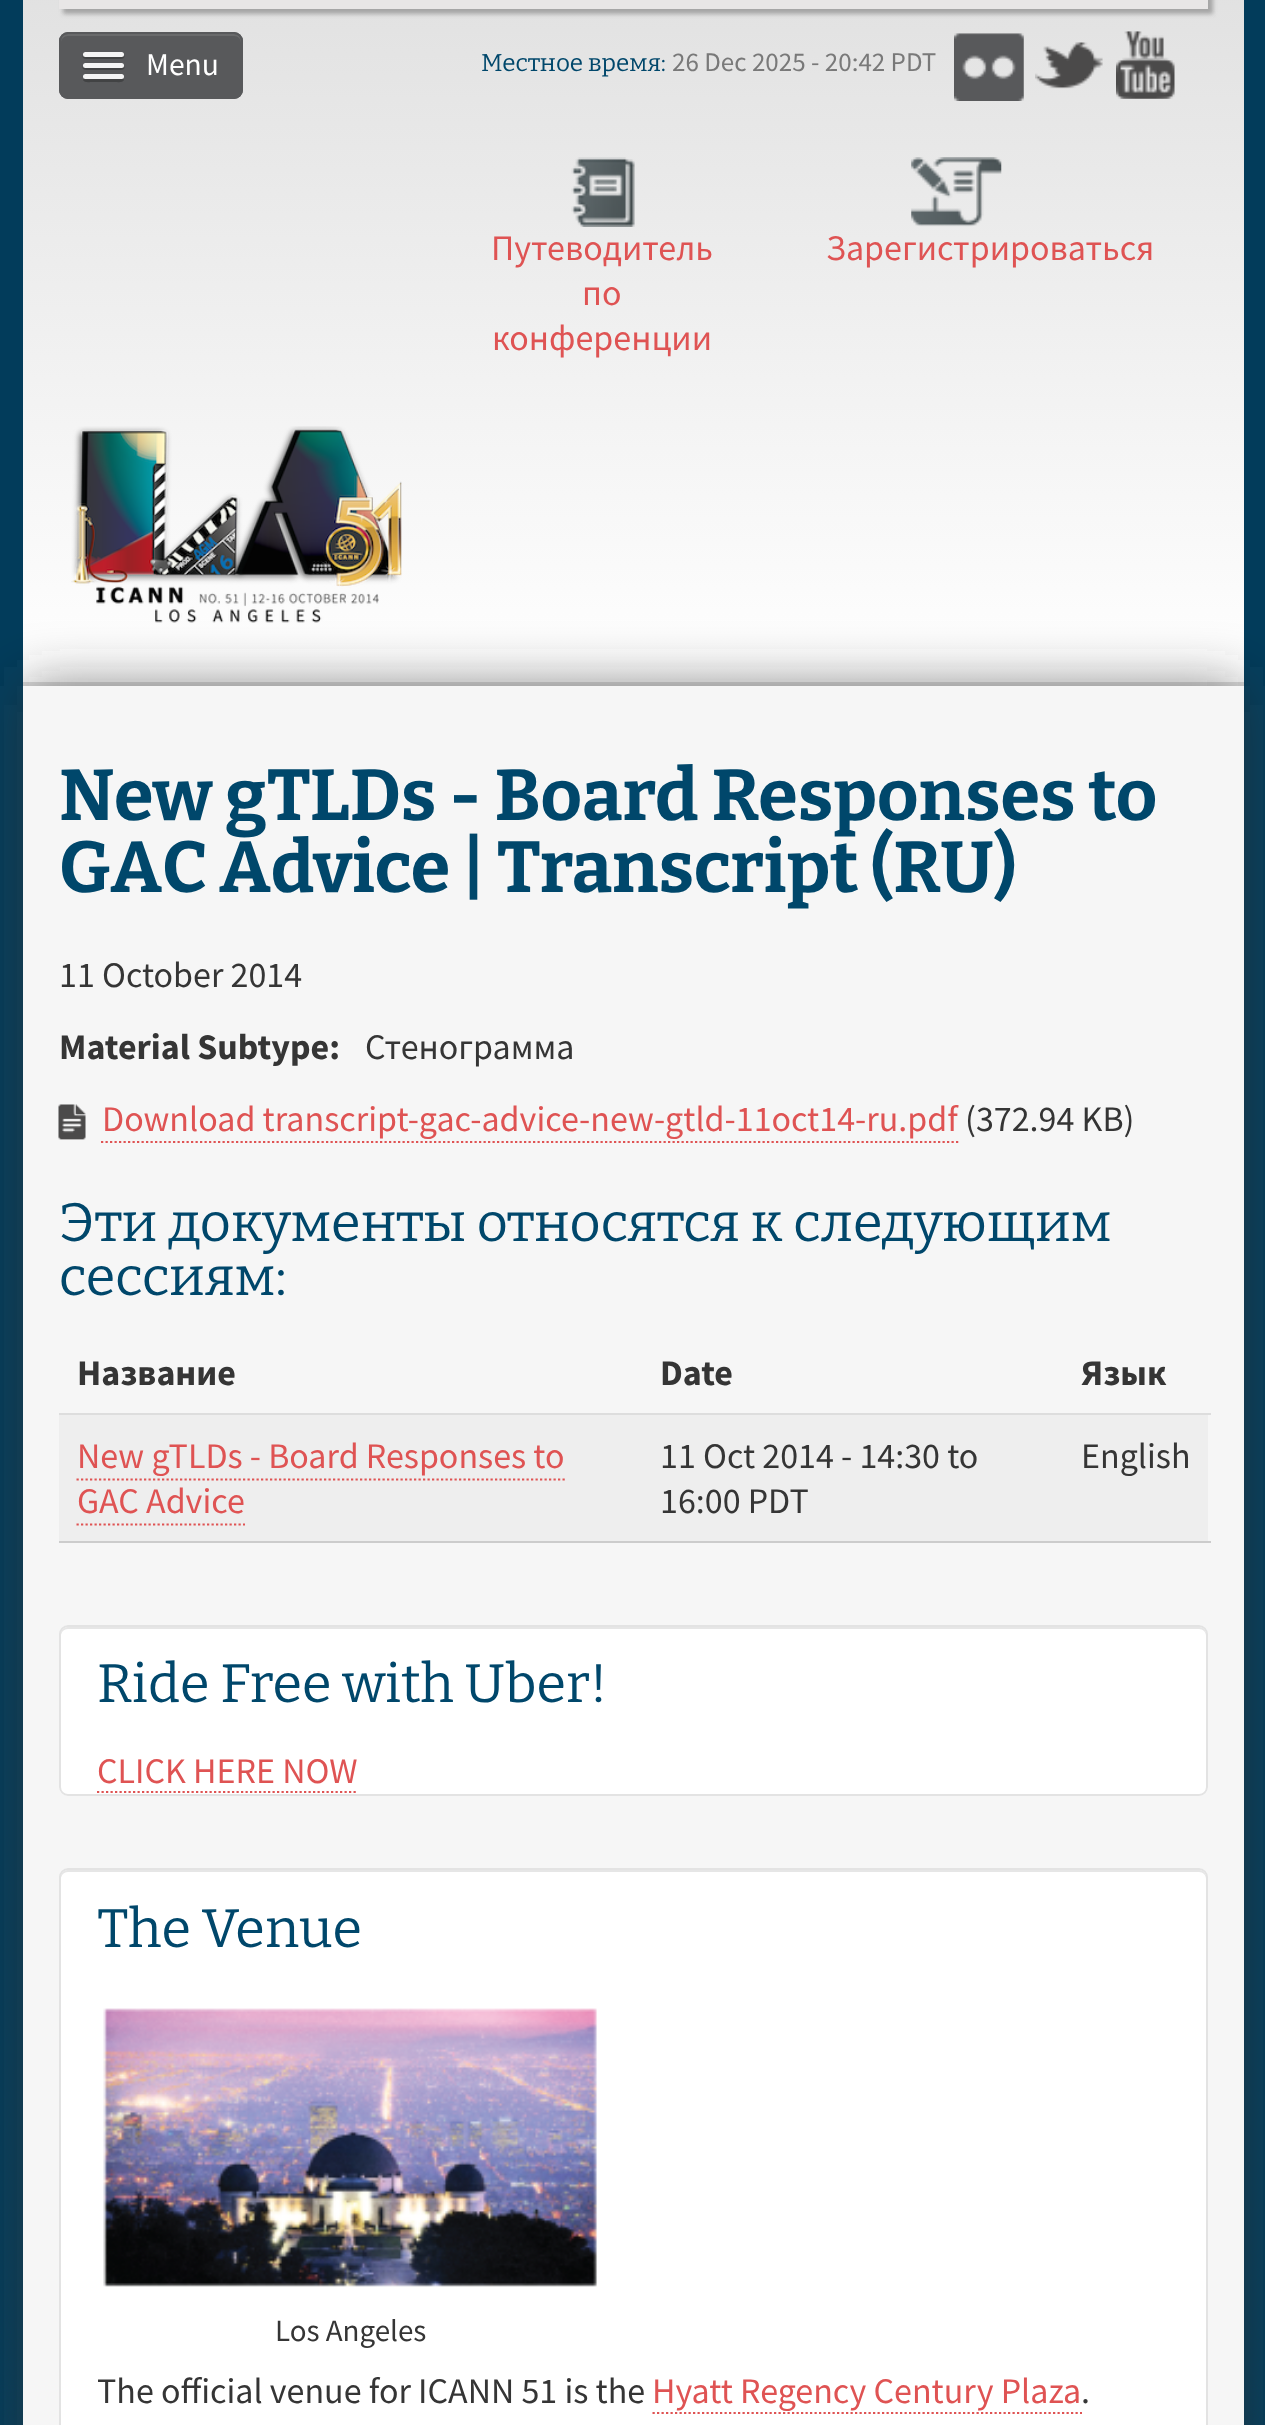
<svg xmlns="http://www.w3.org/2000/svg" width="1265" height="2425" viewBox="0 0 1265 2425">
  <defs>
    <linearGradient id="g1" gradientUnits="userSpaceOnUse" x1="633" y1="-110" x2="633" y2="682"><stop offset="0" stop-color="#dddddd"/><stop offset="1" stop-color="#ffffff"/></linearGradient>
    <filter id="blur1" x="-50%" y="-200%" width="200%" height="500%"><feGaussianBlur stdDeviation="2"/></filter>
    <filter id="blur2" x="-50%" y="-200%" width="200%" height="500%"><feGaussianBlur stdDeviation="28"/></filter>
    <clipPath id="clip1"><rect x="61" y="1627" width="1145" height="166" rx="7"/></clipPath>
  </defs>
  <rect width="100%" height="100%" fill="#023c5b"/>
  <rect x="23" y="0" width="1221" height="682" fill="url(#g1)"/>
  <rect x="23" y="682" width="1221" height="4" fill="#dddddd"/>
  <rect x="63" y="-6" width="1150" height="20" fill="#686868" fill-opacity="0.5" filter="url(#blur1)"/>
  <rect x="59" y="0" width="1149" height="9" fill="#e8e6e6"/>
  <rect x="59" y="32" width="184" height="67" rx="9" fill="#58595b"/>
  <path d="M68 36H234C238 36 241 39 241 43V41C241 37 238 34 234 34H68C64 34 61 37 61 41V43C61 39 64 36 68 36Z" fill="#696a6b"/>
  <rect x="60" y="33" width="182" height="65" rx="8" fill="none" stroke="#58595b" stroke-width="2"/>
  <path d="M83 55C80 60 91 59 92 59H116C116 59 127 60 124 55C123 56 122 56 122 56H86C85 56 84 56 83 55Z" fill="#424344"/>
  <rect x="83" y="52" width="41" height="5" rx="2.5" fill="#f5f5f5"/>
  <path d="M83 66C80 71 91 70 92 70H116C116 70 127 71 124 66C123 67 122 68 122 68H86C85 68 84 67 83 66Z" fill="#424344"/>
  <rect x="83" y="63" width="41" height="5" rx="2.5" fill="#f5f5f5"/>
  <path d="M84 78L83 80C84 83 90 82 92 82H116C117 82 123 83 124 80L123 78L122 79H85Z" fill="#424344"/>
  <rect x="83" y="74" width="41" height="5" rx="2.5" fill="#f5f5f5"/>
  <text x="146" y="75" font-family="Source Sans Pro" font-size="31.5" fill="#ffffff">Menu</text>
  <text x="481" y="71" font-family="Bitter" font-size="24.25" fill="#00476b">Местное время:</text>
  <text x="672" y="71" font-family="Source Sans Pro" font-size="27" fill="#797979">26 Dec 2025 - 20:42 PDT</text>
  <image x="954" y="33" width="70" height="68" href="img1.png"/>
  <image x="1035" y="42" width="68" height="47" href="img2.png"/>
  <image x="1116" y="31" width="59" height="68" href="img3.png"/>
  <image x="571" y="157" width="64" height="70" href="img4.png"/>
  <text x="491" y="260" font-family="Source Sans Pro" font-size="36" fill="#df5353">Путеводитель</text>
  <text x="582" y="305" font-family="Source Sans Pro" font-size="36" fill="#df5353">по</text>
  <text x="492" y="350" font-family="Source Sans Pro" font-size="36" fill="#df5353">конференции</text>
  <image x="911" y="157" width="91" height="70" href="img5.png"/>
  <text x="826" y="260" font-family="Source Sans Pro" font-size="36" fill="#df5353">Зарегистрироваться</text>
  <image x="71" y="426" width="331" height="197" href="img6.png"/>
  <rect x="23" y="686" width="1221" height="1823" fill="#353535" fill-opacity="0.6" filter="url(#blur2)"/>
  <rect x="23" y="686" width="1221" height="1739" fill="#f6f6f6"/>
  <text x="59" y="820" font-family="Bitter" font-size="72" font-weight="bold" fill="#00476b">New gTLDs - Board Responses to</text>
  <text x="59" y="892" word-spacing="-1" font-family="Bitter" font-size="72" font-weight="bold" fill="#00476b">GAC Advice | Transcript (RU)</text>
  <text x="59" y="987" font-family="Source Sans Pro" font-size="36" fill="#353535">11 October 2014</text>
  <text x="59" y="1059" font-family="Source Sans Pro" font-size="36" font-weight="bold" fill="#353535">Material Subtype:</text>
  <text x="365" y="1059" font-family="Source Sans Pro" font-size="36" fill="#353535">Стенограмма</text>
  <image x="58" y="1104" width="28" height="36" href="img7.png"/>
  <text x="102" y="1131" font-family="Source Sans Pro" font-size="36" fill="#df5353">Download transcript-gac-advice-new-gtld-11oct14-ru.pdf</text>
  <path d="M101 1142H958.5" fill="none" stroke="#df5353" stroke-width="2.2" stroke-dasharray="2.25 2.25"/>
  <text x="965" y="1131" font-family="Source Sans Pro" font-size="36" fill="#353535">(372.94 KB)</text>
  <text x="59" y="1241" font-family="Bitter" font-size="54" fill="#00476b">Эти документы относятся к следующим</text>
  <text x="59" y="1295" font-family="Bitter" font-size="54" fill="#00476b">сессиям:</text>
  <text x="77" y="1385" font-family="Source Sans Pro" font-size="36" font-weight="bold" fill="#353535">Название</text>
  <text x="660" y="1385" font-family="Source Sans Pro" font-size="36" font-weight="bold" fill="#353535">Date</text>
  <text x="1081" y="1385" font-family="Source Sans Pro" font-size="36" font-weight="bold" fill="#353535">Язык</text>
  <rect x="59" y="1415" width="1149" height="126" fill="#eeeeee"/>
  <rect x="59" y="1541" width="1152" height="2" fill="#cccccc"/>
  <text x="77" y="1468" font-family="Source Sans Pro" font-size="36" fill="#df5353">New gTLDs - Board Responses to</text>
  <path d="M76.5 1479.5H565" fill="none" stroke="#df5353" stroke-width="2.2" stroke-dasharray="2.25 2.25"/>
  <text x="77" y="1513" font-family="Source Sans Pro" font-size="36" fill="#df5353">GAC Advice</text>
  <path d="M76.5 1524.5H245" fill="none" stroke="#df5353" stroke-width="2.2" stroke-dasharray="2.25 2.25"/>
  <text x="660" y="1468" font-family="Source Sans Pro" font-size="36" fill="#353535">11 Oct 2014 - 14:30 to</text>
  <text x="660" y="1513" font-family="Source Sans Pro" font-size="36" fill="#353535">16:00 PDT</text>
  <rect x="59" y="1413" width="1152" height="2" fill="#dddddd"/>
  <text x="1081" y="1468" font-family="Source Sans Pro" font-size="36" fill="#353535">English</text>
  <rect x="59" y="1625" width="1149" height="171" rx="9" fill="#ffffff"/>
  <path d="M68 1629H1199C1203 1629 1206 1632 1206 1636V1634C1206 1630 1203 1627 1199 1627H68C64 1627 61 1630 61 1634V1636C61 1632 64 1629 68 1629Z" fill="#e6e6e6"/>
  <rect x="60" y="1626" width="1147" height="169" rx="8" fill="none" stroke="#e3e3e3" stroke-width="2"/>
  <text x="97" y="1702" font-family="Bitter" font-size="54" fill="#00476b">Ride Free with Uber!</text>
  <text x="97" y="1783" font-family="Source Sans Pro" font-size="36" fill="#df5353">CLICK HERE NOW</text>
  <g clip-path="url(#clip1)">
    <path d="M97 1792H358" fill="none" stroke="#df5353" stroke-width="2.2" stroke-dasharray="2.25 2.25"/>
  </g>
  <rect x="59" y="1868" width="1149" height="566" rx="9" fill="#ffffff"/>
  <path d="M68 1872H1199C1203 1872 1206 1875 1206 1879V1877C1206 1873 1203 1870 1199 1870H68C64 1870 61 1873 61 1877V1879C61 1875 64 1872 68 1872Z" fill="#e6e6e6"/>
  <rect x="60" y="1869" width="1147" height="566" rx="8" fill="none" stroke="#e3e3e3" stroke-width="2"/>
  <text x="97" y="1947" font-family="Bitter" font-size="54" fill="#00476b">The Venue</text>
  <image x="103" y="2008" width="494" height="279" href="img8.png"/>
  <text x="275" y="2341" font-family="Source Sans Pro" font-size="31" fill="#353535">Los Angeles</text>
  <text x="97" y="2403" font-family="Source Sans Pro" font-size="36" fill="#353535">The official venue for ICANN 51 is the</text>
  <path d="M652.5 2413H1082" fill="none" stroke="#df5353" stroke-width="2.2" stroke-dasharray="2.25 2.25"/>
  <text x="652" y="2403" font-family="Source Sans Pro" font-size="36" fill="#df5353">Hyatt Regency Century Plaza</text>
  <text x="1081" y="2403" font-family="Source Sans Pro" font-size="36" fill="#353535">.</text>
</svg>
